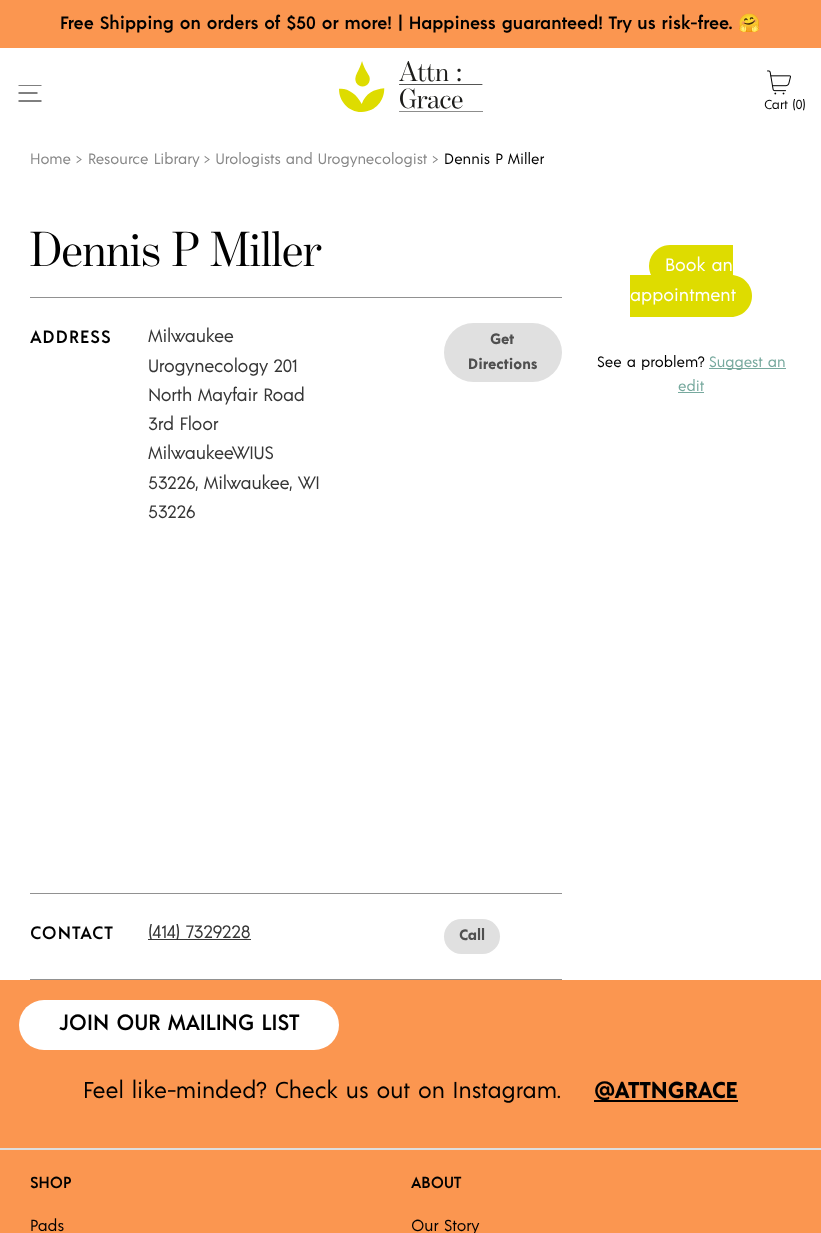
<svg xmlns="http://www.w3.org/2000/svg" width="821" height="1233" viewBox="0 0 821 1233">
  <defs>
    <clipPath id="clip1"><rect x="15" y="85" width="30" height="17"/></clipPath>
  </defs>
  <rect width="100%" height="100%" fill="#ffffff"/>
  <rect x="0" y="0" width="821" height="48" fill="#fb9650"/>
  <text x="60" y="29" font-family="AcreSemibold" font-size="18" font-weight="600" fill="#000000">Free Shipping on orders of $50 or more! | Happiness guaranteed! Try us risk-free.</text>
  <text x="738" y="29" font-family="Noto Color Emoji" font-size="18" font-weight="bold" fill="#000000">🤗</text>
  <g clip-path="url(#clip1)">
    <path d="M18.5 85H41.5" fill="none" stroke="#000000"/>
  </g>
  <path d="M18.5 93H37.5M18.5 101H41.5" fill="none" stroke="#000000"/>
  <image x="339" y="61" width="144" height="51" href="img1.png"/>
  <image x="767" y="70" width="24" height="25" href="img2.png"/>
  <text x="764" y="109" font-family="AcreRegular" font-size="13" fill="#000000">Cart (0)</text>
  <text x="30" y="164" font-family="AcreRegular" font-size="15" fill="#878787">Home &gt;</text>
  <text x="88" y="164" font-family="AcreRegular" font-size="15" fill="#878787">Resource Library</text>
  <text x="204" y="164" font-family="AcreRegular" font-size="15" fill="#878787">&gt; Urologists and Urogynecologist &gt;</text>
  <text x="444" y="164" font-family="AcreRegular" font-size="15" fill="#000000">Dennis P Miller</text>
  <text x="30" y="266" font-family="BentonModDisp" font-size="50" letter-spacing="-0.1" fill="#000000">Dennis P Miller</text>
  <rect x="30" y="297" width="532" height="1" fill="#919191"/>
  <rect x="30" y="893" width="532" height="1" fill="#919191"/>
  <text x="30" y="343" font-family="AcreSemibold" font-size="18" font-weight="600" letter-spacing="1" fill="#000000">ADDRESS</text>
  <text x="148" y="342" font-family="AcreRegular" font-size="18" letter-spacing="-0.25" fill="#363636">Milwaukee</text>
  <text x="148" y="372" font-family="AcreRegular" font-size="18" letter-spacing="-0.25" fill="#363636">Urogynecology 201</text>
  <text x="148" y="401" font-family="AcreRegular" font-size="18" letter-spacing="-0.25" fill="#363636">North Mayfair Road</text>
  <text x="148" y="430" font-family="AcreRegular" font-size="18" letter-spacing="-0.25" fill="#363636">3rd Floor</text>
  <text x="148" y="459" font-family="AcreRegular" font-size="18" letter-spacing="-0.25" fill="#363636">MilwaukeeWIUS</text>
  <text x="148" y="489" font-family="AcreRegular" font-size="18" letter-spacing="-0.25" fill="#363636">53226, Milwaukee, WI</text>
  <text x="148" y="518" font-family="AcreRegular" font-size="18" letter-spacing="-0.25" fill="#363636">53226</text>
  <rect x="444" y="323" width="118" height="59" rx="29.5" fill="#e0e0e0"/>
  <text x="490" y="344" font-family="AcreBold" font-size="15" font-weight="bold" fill="#4f4f4f">Get</text>
  <text x="468" y="369" font-family="AcreBold" font-size="15" font-weight="bold" fill="#4f4f4f">Directions</text>
  <rect x="30" y="979" width="532" height="1" fill="#919191"/>
  <text x="30" y="939" font-family="AcreSemibold" font-size="18" font-weight="600" letter-spacing="1" fill="#000000">CONTACT</text>
  <rect x="148" y="939" width="103" height="1" fill="#363636"/>
  <text x="148" y="938" font-family="AcreRegular" font-size="18" fill="#363636">(414) 7329228</text>
  <rect x="444" y="919" width="56" height="35" rx="17.5" fill="#e0e0e0"/>
  <text x="459" y="940" font-family="AcreBold" font-size="15" font-weight="bold" fill="#4f4f4f">Call</text>
  <path d="M670 245H733V287H670C658.5 287 649 277.5 649 266C649 254.5 658.5 245 670 245Z" fill="#dedc00"/>
  <text x="665" y="271" font-family="AcreRegular" font-size="18" fill="#ffffff">Book an</text>
  <path d="M630 275H731C742.5 275 752 284.5 752 296C752 307.5 742.5 317 731 317H630Z" fill="#dedc00"/>
  <text x="630" y="301" font-family="AcreRegular" font-size="18" fill="#ffffff">appointment</text>
  <text x="597" y="367" font-family="AcreRegular" font-size="15" fill="#000000">See a problem?</text>
  <rect x="709" y="368" width="77" height="1" fill="#77a99e"/>
  <text x="709" y="367" font-family="AcreRegular" font-size="15" fill="#77a99e">Suggest an</text>
  <text x="678" y="391" font-family="AcreRegular" font-size="15" fill="#77a99e">edit</text>
  <rect x="678" y="392" width="26" height="1" fill="#77a99e"/>
  <rect x="0" y="980" width="821" height="253" fill="#fb9650"/>
  <rect x="19" y="1000" width="320" height="50" rx="25" fill="#ffffff"/>
  <text x="59" y="1030" font-family="AcreSemibold" font-size="22" font-weight="600" fill="#000000">JOIN OUR MAILING LIST</text>
  <text x="83" y="1098" font-family="AcreRegular" font-size="23" fill="#000000">Feel like-minded? Check us out on Instagram.</text>
  <rect x="594" y="1100" width="144" height="2" fill="#000000"/>
  <text x="594" y="1098" font-family="AcreBold" font-size="23" font-weight="bold" fill="#000000">@ATTNGRACE</text>
  <rect x="0" y="1148" width="821" height="2" fill="#dedede"/>
  <text x="30" y="1188" font-family="AcreSemibold" font-size="16" font-weight="600" fill="#000000">SHOP</text>
  <text x="30" y="1231" font-family="AcreRegular" font-size="16" fill="#000000">Pads</text>
  <text x="411" y="1188" font-family="AcreSemibold" font-size="16" font-weight="600" fill="#000000">ABOUT</text>
  <text x="411" y="1231" font-family="AcreRegular" font-size="16" fill="#000000">Our Story</text>
</svg>
